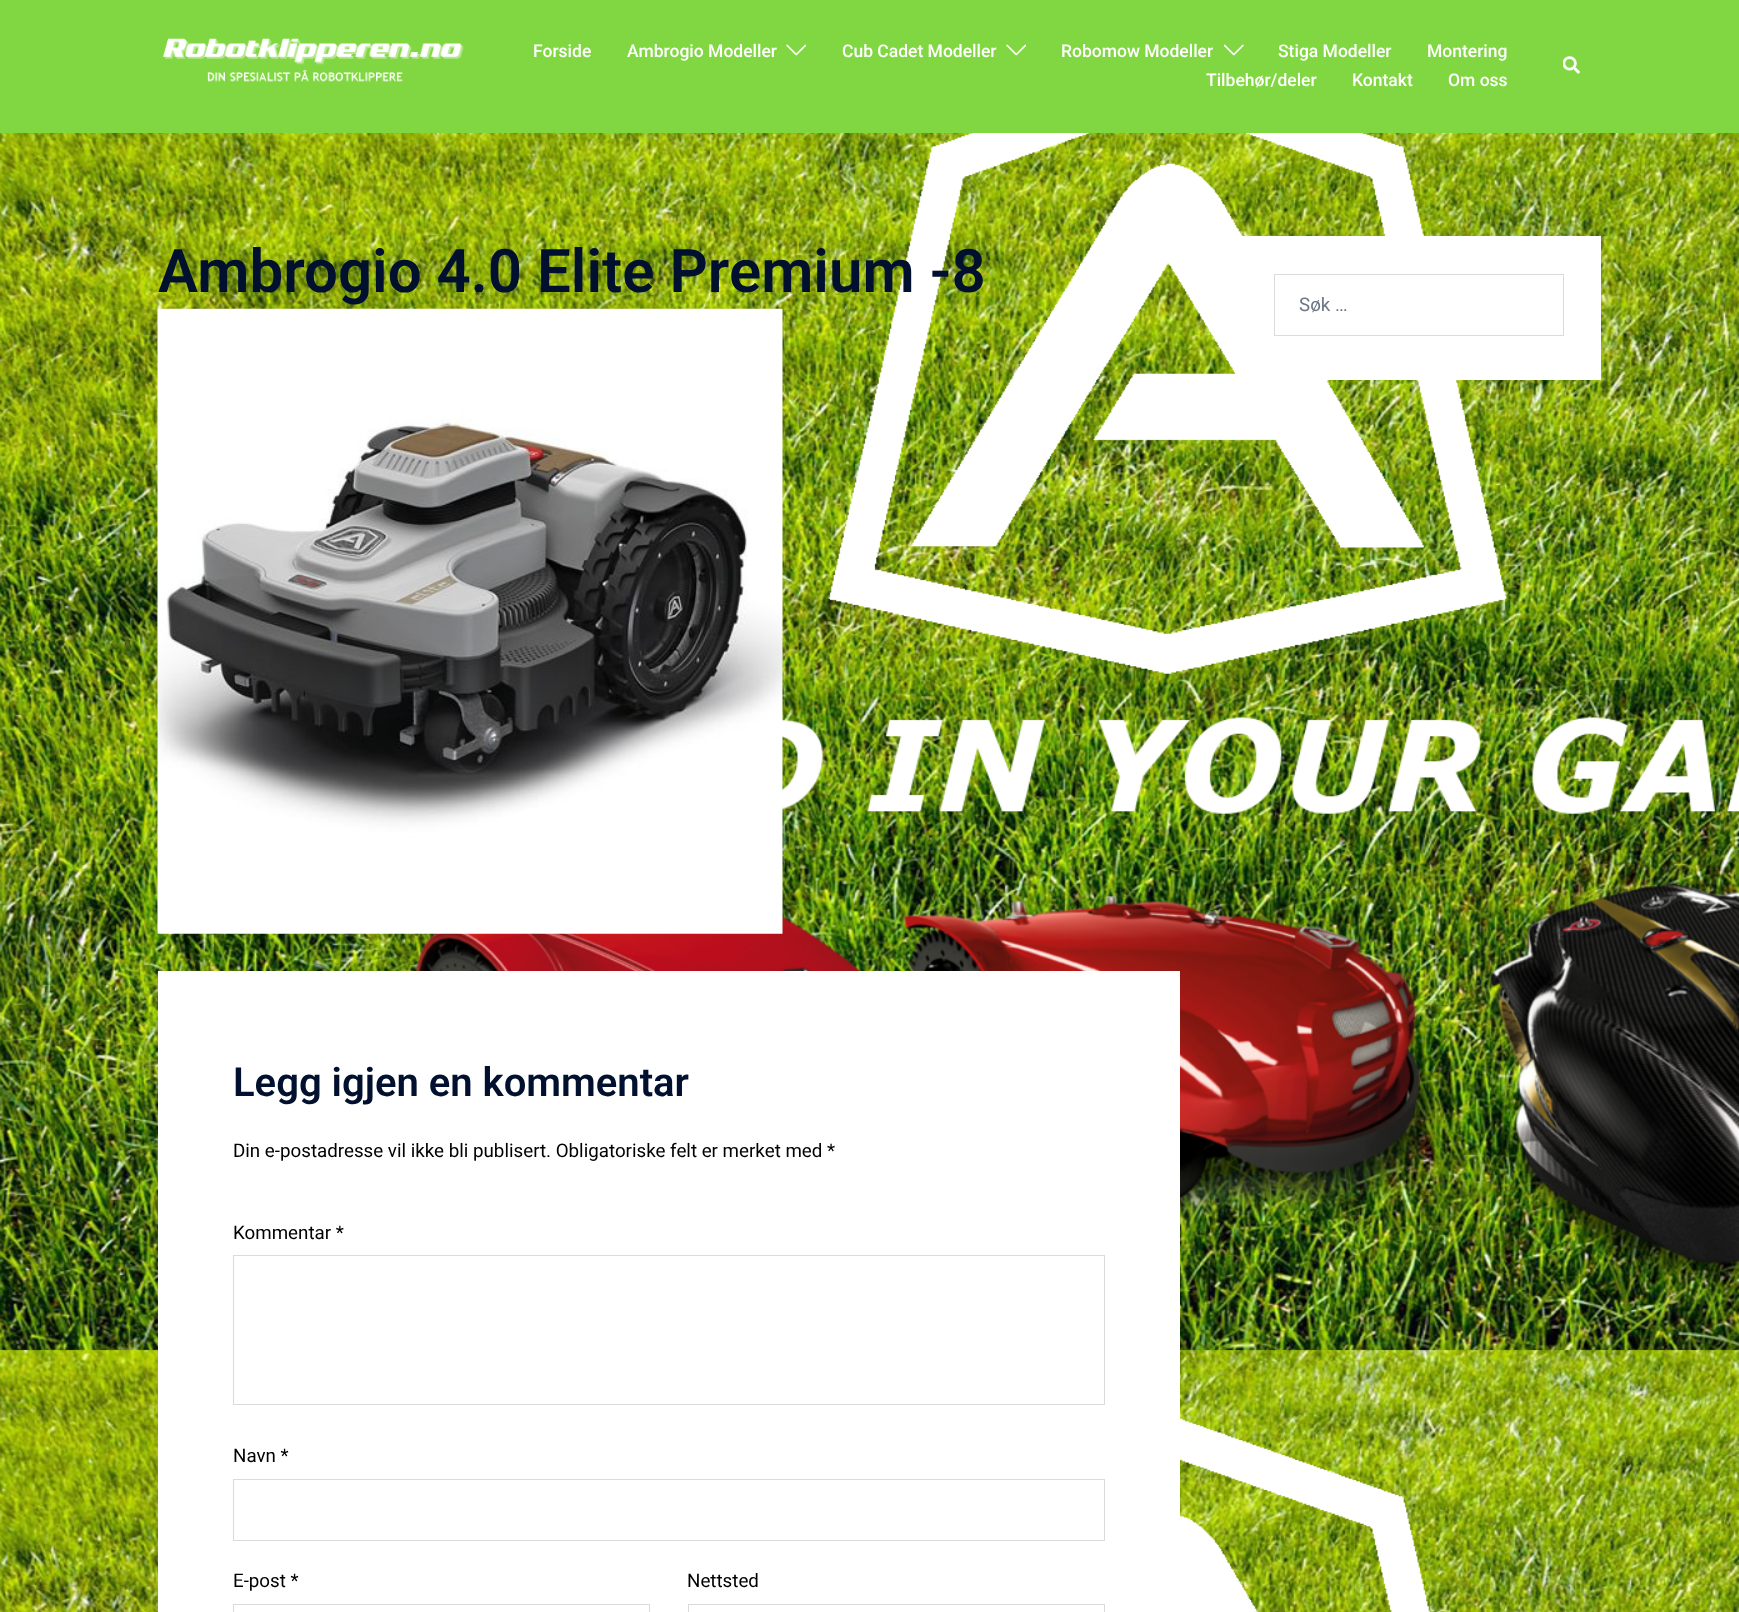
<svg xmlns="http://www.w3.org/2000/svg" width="1739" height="1612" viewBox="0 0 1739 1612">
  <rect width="100%" height="100%" fill="#ffffff"/>
  <image x="0" y="133" width="1739" height="1479" href="img1.png"/>
  <rect x="0" y="0" width="1739" height="133" fill="#81d742"/>
  <image x="163" y="38" width="301" height="44" href="img2.png"/>
  <text x="533" y="57" font-family="Roboto" font-size="17.5" font-weight="500" fill="#ffffff">Forside</text>
  <text x="627" y="57" font-family="Roboto" font-size="17.5" font-weight="500" fill="#ffffff">Ambrogio Modeller</text>
  <image x="786" y="44" width="20" height="12" href="img3.png"/>
  <text x="842" y="57" font-family="Roboto" font-size="17.5" font-weight="500" fill="#ffffff">Cub Cadet Modeller</text>
  <image x="1006" y="44" width="20" height="12" href="img3.png"/>
  <text x="1061" y="57" font-family="Roboto" font-size="17.5" font-weight="500" fill="#ffffff">Robomow Modeller</text>
  <image x="1224" y="44" width="20" height="12" href="img4.png"/>
  <text x="1278" y="57" font-family="Roboto" font-size="17.5" font-weight="500" fill="#ffffff">Stiga Modeller</text>
  <text x="1427" y="57" font-family="Roboto" font-size="17.5" font-weight="500" fill="#ffffff">Montering</text>
  <text x="1206" y="86" font-family="Roboto" font-size="17.5" font-weight="500" fill="#ffffff">Tilbehør/deler</text>
  <text x="1352" y="86" font-family="Roboto" font-size="17.5" font-weight="500" fill="#ffffff">Kontakt</text>
  <text x="1448" y="86" font-family="Roboto" font-size="17.5" font-weight="500" fill="#ffffff">Om oss</text>
  <image x="1563" y="56" width="17" height="18" href="img5.png"/>
  <text x="158" y="292" font-family="Roboto" font-size="60" font-weight="600" fill="#00102e">Ambrogio 4.0 Elite Premium -8</text>
  <image x="157" y="308" width="626" height="626" href="img6.png"/>
  <rect x="158" y="971" width="1022" height="641" fill="#ffffff"/>
  <text x="233" y="1096" font-family="Roboto" font-size="40" font-weight="600" fill="#00102e">Legg igjen en kommentar</text>
  <text x="233" y="1157" font-family="Roboto" font-size="18.75" fill="#000000">Din e-postadresse vil ikke bli publisert. Obligatoriske felt er merket med *</text>
  <text x="233" y="1239" font-family="Roboto" font-size="18.75" fill="#000000">Kommentar *</text>
  <rect x="233.5" y="1255.5" width="871" height="149" fill="none" stroke="#dbdbdb"/>
  <text x="233" y="1462" font-family="Roboto" font-size="18.75" fill="#000000">Navn *</text>
  <rect x="233.5" y="1479.5" width="871" height="61" fill="none" stroke="#dbdbdb"/>
  <text x="233" y="1587" font-family="Roboto" font-size="18.75" fill="#000000">E-post *</text>
  <rect x="233.5" y="1604.5" width="416" height="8" fill="none" stroke="#dbdbdb"/>
  <text x="687" y="1587" font-family="Roboto" font-size="18.75" fill="#000000">Nettsted</text>
  <rect x="688.5" y="1604.5" width="416" height="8" fill="none" stroke="#dbdbdb"/>
  <rect x="1242" y="236" width="359" height="144" fill="#ffffff"/>
  <rect x="1274.5" y="274.5" width="289" height="61" fill="none" stroke="#dbdbdb"/>
  <text x="1299" y="311" font-family="Roboto" font-size="18.75" fill="#6d7685">Søk …</text>
</svg>
